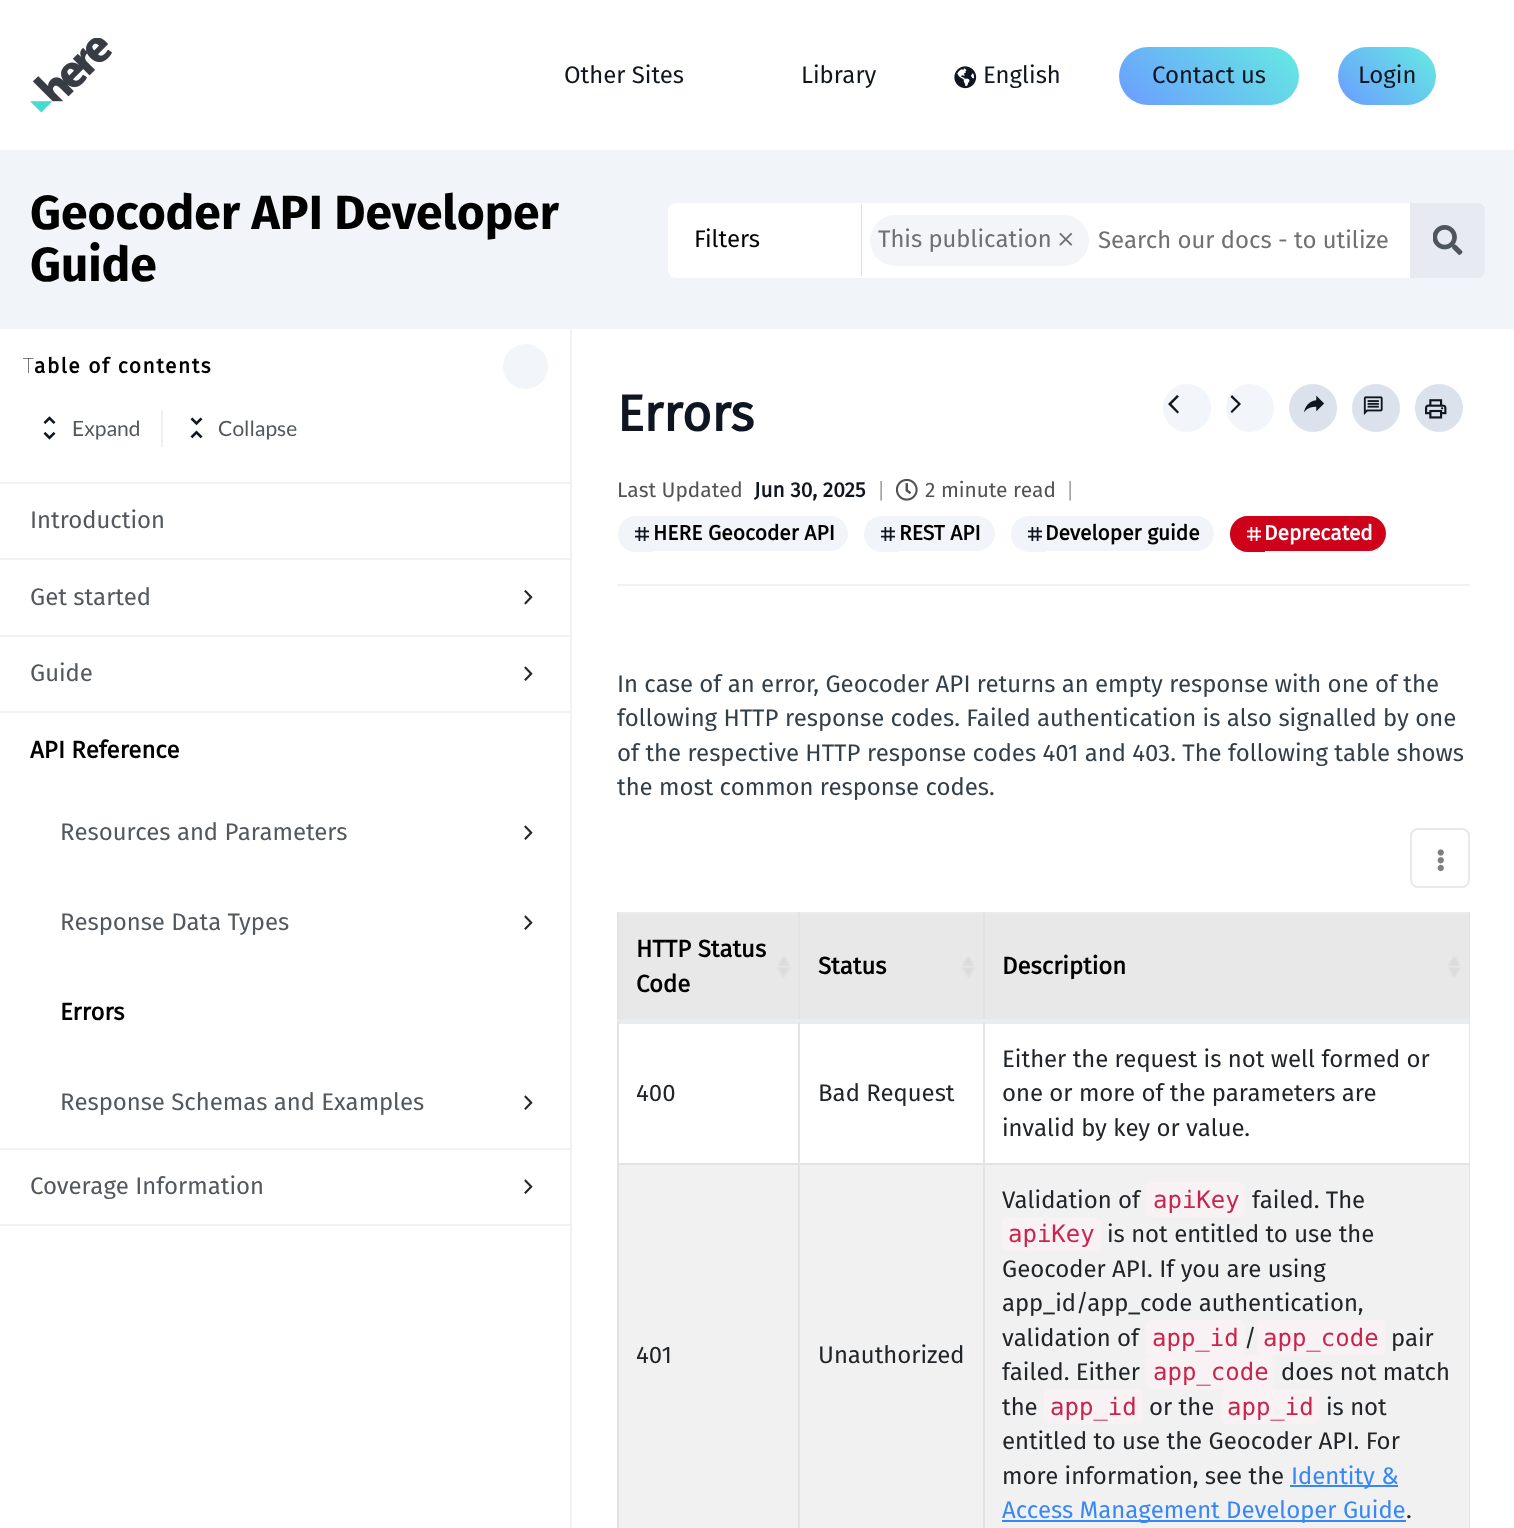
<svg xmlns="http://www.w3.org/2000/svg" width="1514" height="1528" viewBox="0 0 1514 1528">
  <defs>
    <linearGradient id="g1" gradientUnits="userSpaceOnUse" x1="1266" y1="15" x2="1152" y2="136"><stop offset="0" stop-color="#65ebe2"/><stop offset="1" stop-color="#6b9cff"/></linearGradient>
    <linearGradient id="g2" gradientUnits="userSpaceOnUse" x1="1425" y1="36" x2="1349" y2="115"><stop offset="0" stop-color="#65ebe2"/><stop offset="1" stop-color="#6b9cff"/></linearGradient>
  </defs>
  <rect width="100%" height="100%" fill="#ffffff"/>
  <image x="30" y="38" width="82" height="75" href="img1.png"/>
  <text x="564" y="83" font-family="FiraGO" font-size="24" fill="#0f1621">Other Sites</text>
  <text x="801" y="83" font-family="FiraGO" font-size="24" fill="#0f1621">Library</text>
  <image x="954" y="66" width="23" height="23" href="img2.png"/>
  <text x="983" y="83" font-family="FiraGO" font-size="24" fill="#0f1621">English</text>
  <rect x="1119" y="47" width="180" height="58" rx="29" fill="url(#g1)"/>
  <text x="1152" y="83" font-family="FiraGO" font-size="24" fill="#0f1621">Contact us</text>
  <rect x="1338" y="47" width="98" height="58" rx="29" fill="url(#g2)"/>
  <text x="1358" y="83" font-family="FiraGO" font-size="24" fill="#0f1621">Login</text>
  <rect x="0" y="150" width="1514" height="179" fill="#f1f4f8"/>
  <text x="30" y="229" font-family="'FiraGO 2'" font-size="48" font-weight="bold" fill="#000000">Geocoder API Developer</text>
  <text x="30" y="281" font-family="'FiraGO 2'" font-size="48" font-weight="bold" fill="#000000">Guide</text>
  <path d="M676 203H863V278H676C671.5 278 668 274.5 668 270V211C668 206.5 671.5 203 676 203Z" fill="#ffffff"/>
  <path d="M862 203V277L861 276V204Z" fill="#dfe0e1"/>
  <text x="694" y="247" font-family="FiraGO" font-size="24" fill="#000000">Filters</text>
  <rect x="864.5" y="204.5" width="544" height="72" fill="#ffffff" stroke="#ffffff" stroke-width="3"/>
  <rect x="870" y="215" width="219" height="51" rx="25.5" fill="#f3f5f8"/>
  <text x="878" y="247" font-family="FiraGO" font-size="24" fill="#707070">This publication</text>
  <image x="1059" y="232" width="14" height="14" href="img3.png"/>
  <text x="1098" y="248" font-family="FiraGO" font-size="24" fill="#707070">Search our docs - to utilize</text>
  <path d="M1410 203H1477C1481.5 203 1485 206.5 1485 211V270C1485 274.5 1481.5 278 1477 278H1410Z" fill="#e7ebf1"/>
  <image x="1433" y="225" width="30" height="30" href="img4.png"/>
  <rect x="570" y="329" width="2" height="1199" fill="#f2f2f2"/>
  <rect x="0" y="482" width="570" height="2" fill="#f2f2f2"/>
  <text x="23" y="373" font-family="Noto Sans" font-size="21" font-weight="100" letter-spacing="1.5" fill="#000000">T</text>
  <text x="34" y="373" font-family="FiraGO" font-size="21" font-weight="bold" letter-spacing="1.5" fill="#000000">able of contents</text>
  <circle cx="525.5" cy="366.5" r="22.5" fill="#f2f5f9"/>
  <image x="43" y="416" width="13" height="24" href="img5.png"/>
  <text x="72" y="436" font-family="Lato" font-size="21" fill="#52585d">Expand</text>
  <rect x="161" y="410" width="2" height="37" fill="#eff0f0"/>
  <image x="190" y="417" width="13" height="22" href="img6.png"/>
  <text x="218" y="436" font-family="Lato" font-size="21" fill="#52585d">Collapse</text>
  <rect x="0" y="558" width="570" height="2" fill="#f2f2f2"/>
  <text x="30" y="528" font-family="FiraGO" font-size="24" fill="#52585d">Introduction</text>
  <rect x="0" y="635" width="570" height="2" fill="#f2f2f2"/>
  <text x="30" y="605" font-family="FiraGO" font-size="24" fill="#52585d">Get started</text>
  <image x="524" y="590" width="9" height="15" href="img7.png"/>
  <rect x="0" y="711" width="570" height="2" fill="#f2f2f2"/>
  <text x="30" y="681" font-family="FiraGO" font-size="24" fill="#52585d">Guide</text>
  <image x="524" y="666" width="9" height="15" href="img8.png"/>
  <rect x="0" y="1148" width="570" height="2" fill="#f2f2f2"/>
  <text x="30" y="758" font-family="FiraGO" font-size="24" font-weight="bold" fill="#000000">API Reference</text>
  <text x="60" y="840" font-family="FiraGO" font-size="24" fill="#52585d">Resources and Parameters</text>
  <image x="524" y="825" width="9" height="15" href="img8.png"/>
  <text x="60" y="930" font-family="FiraGO" font-size="24" fill="#52585d">Response Data Types</text>
  <image x="524" y="915" width="9" height="15" href="img8.png"/>
  <text x="60" y="1020" font-family="FiraGO" font-size="24" font-weight="bold" fill="#000000">Errors</text>
  <text x="60" y="1110" font-family="FiraGO" font-size="24" fill="#52585d">Response Schemas and Examples</text>
  <image x="524" y="1095" width="9" height="15" href="img8.png"/>
  <rect x="0" y="1224" width="570" height="2" fill="#f2f2f2"/>
  <text x="30" y="1194" font-family="FiraGO" font-size="24" fill="#52585d">Coverage Information</text>
  <image x="524" y="1179" width="9" height="15" href="img8.png"/>
  <rect x="617" y="584" width="853" height="2" fill="#f2f2f2"/>
  <text x="617" y="431" font-family="FiraGO" font-size="51" font-weight="bold" fill="#0f1621">Errors</text>
  <circle cx="1187" cy="408" r="24" fill="#f2f5f9"/>
  <path d="M1179 396.5L1177 395L1168 404L1177.5 413.5L1179 412L1171.5 404Z" fill="#0f1621"/>
  <circle cx="1250" cy="408" r="24" fill="#f2f5f9"/>
  <path d="M1230.5 411.5L1232 413L1241 404L1232 395L1230.5 397L1238 404Z" fill="#0f1621"/>
  <circle cx="1313" cy="408" r="24" fill="#f2f5f9"/>
  <circle cx="1313" cy="408" r="24" fill="#0f3773" fill-opacity="0.1"/>
  <image x="1304" y="395" width="20" height="18" href="img9.png"/>
  <circle cx="1376" cy="408" r="24" fill="#f2f5f9"/>
  <circle cx="1376" cy="408" r="24" fill="#0f3773" fill-opacity="0.1"/>
  <image x="1363" y="396" width="20" height="19" href="img10.png"/>
  <circle cx="1439" cy="408" r="24" fill="#f2f5f9"/>
  <circle cx="1439" cy="408" r="24" fill="#0f3773" fill-opacity="0.1"/>
  <image x="1425" y="399" width="22" height="20" href="img11.png"/>
  <text x="617" y="497" font-family="FiraGO" font-size="21" fill="#525252">Last Updated</text>
  <text x="754" y="497" font-family="FiraGO" font-size="21" font-weight="bold" fill="#0f1621">Jun 30, 2025</text>
  <text x="878" y="497" font-family="Lato" font-size="21" fill="#93979a">|</text>
  <image x="896" y="479" width="22" height="22" href="img12.png"/>
  <text x="925" y="497" font-family="FiraGO" font-size="21" fill="#525252">2 minute read</text>
  <text x="1067" y="497" font-family="Lato" font-size="21" fill="#93979a">|</text>
  <path d="M635.5 516H653V552H635.5C626 552 618 544 618 534.5V533.5C618 524 626 516 635.5 516Z" fill="#f1f4f8"/>
  <path d="M653 516H830.5C840 516 848 524 848 533.5C848 543 840 551 830.5 551H653Z" fill="#f1f4f8"/>
  <image x="635" y="527" width="14" height="14" href="img13.png"/>
  <text x="653" y="540" font-family="FiraGO" font-size="21" font-weight="bold" fill="#000000">HERE Geocoder API</text>
  <path d="M881.5 516H899V552H881.5C872 552 864 544 864 534.5V533.5C864 524 872 516 881.5 516Z" fill="#f1f4f8"/>
  <path d="M899 516H977.5C987 516 995 524 995 533.5C995 543 987 551 977.5 551H899Z" fill="#f1f4f8"/>
  <image x="881" y="527" width="14" height="14" href="img13.png"/>
  <text x="899" y="540" font-family="FiraGO" font-size="21" font-weight="bold" fill="#000000">REST API</text>
  <path d="M1028.5 516H1046V552H1028.5C1019 552 1011 544 1011 534.5V533.5C1011 524 1019 516 1028.5 516Z" fill="#f1f4f8"/>
  <path d="M1046 516H1196.5C1206 516 1214 524 1214 533.5C1214 543 1206 551 1196.5 551H1046Z" fill="#f1f4f8"/>
  <image x="1028" y="527" width="14" height="14" href="img13.png"/>
  <text x="1045" y="540" font-family="FiraGO" font-size="21" font-weight="bold" fill="#000000">Developer guide</text>
  <path d="M1247.5 516H1265V552H1247.5C1238 552 1230 544 1230 534.5V533.5C1230 524 1238 516 1247.5 516Z" fill="#cf001a"/>
  <path d="M1265 516H1368.5C1378 516 1386 524 1386 533.5C1386 543 1378 551 1368.5 551H1265Z" fill="#cf001a"/>
  <image x="1247" y="527" width="14" height="14" href="img14.png"/>
  <text x="1264" y="540" font-family="FiraGO" font-size="21" font-weight="bold" fill="#ffffff">Deprecated</text>
  <text x="617" y="692" font-family="FiraGO" font-size="24" fill="#323e48">In case of an error, Geocoder API returns an empty response with one of the</text>
  <text x="617" y="726" font-family="FiraGO" font-size="24" fill="#323e48">following HTTP response codes. Failed authentication is also signalled by one</text>
  <text x="617" y="761" font-family="FiraGO" font-size="24" fill="#323e48">of the respective HTTP response codes 401 and 403. The following table shows</text>
  <text x="617" y="795" font-family="FiraGO" font-size="24" fill="#323e48">the most common response codes.</text>
  <rect x="1411" y="829" width="58" height="58" rx="7" fill="none" stroke="#e9e9e9" stroke-width="2"/>
  <image x="1437" y="849" width="7" height="23" href="img15.png"/>
  <rect x="619" y="978" width="850" height="41" fill="#e8e8e8"/>
  <image x="619" y="914" width="179" height="64" href="img16.png"/>
  <rect x="617" y="912" width="853" height="2" fill="#e9ecef"/>
  <rect x="798" y="912" width="2" height="110" fill="#e3e3e3"/>
  <rect x="617" y="912" width="2" height="110" fill="#e3e3e3"/>
  <text x="636" y="957" font-family="FiraGO" font-size="24" font-weight="bold" fill="#000000">HTTP Status</text>
  <text x="636" y="992" font-family="FiraGO" font-size="24" font-weight="bold" fill="#000000">Code</text>
  <image x="800" y="914" width="183" height="64" href="img17.png"/>
  <rect x="983" y="912" width="2" height="110" fill="#e3e3e3"/>
  <text x="818" y="974" font-family="FiraGO" font-size="24" font-weight="bold" fill="#000000">Status</text>
  <image x="985" y="914" width="484" height="64" href="img18.png"/>
  <rect x="1469" y="912" width="1" height="110" fill="#e3e3e3"/>
  <rect x="617" y="1019" width="853" height="3" fill="#e9ecef"/>
  <text x="1002" y="974" font-family="FiraGO" font-size="24" font-weight="bold" fill="#000000">Description</text>
  <rect x="617" y="1022" width="853" height="2" fill="#e9ecef"/>
  <rect x="1469" y="1163" width="1" height="365" fill="#e3e3e3"/>
  <rect x="1469" y="1022" width="1" height="142" fill="#e3e3e3"/>
  <rect x="619" y="1165" width="850" height="363" fill="#f1f1f1"/>
  <rect x="983" y="1163" width="2" height="365" fill="#e3e3e3"/>
  <rect x="983" y="1163" width="487" height="2" fill="#e3e3e3"/>
  <rect x="983" y="1022" width="2" height="142" fill="#e3e3e3"/>
  <rect x="798" y="1163" width="2" height="365" fill="#e3e3e3"/>
  <rect x="798" y="1163" width="186" height="2" fill="#e3e3e3"/>
  <rect x="798" y="1022" width="2" height="142" fill="#e3e3e3"/>
  <rect x="617" y="1163" width="2" height="365" fill="#e3e3e3"/>
  <rect x="617" y="1163" width="183" height="2" fill="#e3e3e3"/>
  <rect x="617" y="1022" width="2" height="142" fill="#e3e3e3"/>
  <text x="636" y="1101" font-family="FiraGO" font-size="24" fill="#212529">400</text>
  <text x="818" y="1101" font-family="FiraGO" font-size="24" fill="#212529">Bad Request</text>
  <text x="1002" y="1067" font-family="FiraGO" font-size="24" fill="#212529">Either the request is not well formed or</text>
  <text x="1002" y="1101" font-family="FiraGO" font-size="24" fill="#212529">one or more of the parameters are</text>
  <text x="1002" y="1136" font-family="FiraGO" font-size="24" fill="#212529">invalid by key or value.</text>
  <text x="636" y="1363" font-family="FiraGO" font-size="24" fill="#212529">401</text>
  <text x="818" y="1363" font-family="FiraGO" font-size="24" fill="#212529">Unauthorized</text>
  <text x="1002" y="1208" font-family="FiraGO" font-size="24" fill="#212529">Validation of</text>
  <rect x="1146" y="1182" width="99" height="35" rx="6" fill="#f9f2f4"/>
  <text x="1153" y="1208" font-family="DejaVu Sans Mono" font-size="24" fill="#c7254e">apiKey</text>
  <text x="1252" y="1208" font-family="FiraGO" font-size="24" fill="#212529">failed. The</text>
  <rect x="1002" y="1217" width="99" height="34" rx="6" fill="#f9f2f4"/>
  <text x="1008" y="1242" font-family="DejaVu Sans Mono" font-size="24" fill="#c7254e">apiKey</text>
  <text x="1107" y="1242" font-family="FiraGO" font-size="24" fill="#212529">is not entitled to use the</text>
  <text x="1002" y="1277" font-family="FiraGO" font-size="24" fill="#212529">Geocoder API. If you are using</text>
  <text x="1002" y="1311" font-family="FiraGO" font-size="24" fill="#212529">app_id/app_code authentication,</text>
  <text x="1002" y="1346" font-family="FiraGO" font-size="24" fill="#212529">validation of</text>
  <rect x="1146" y="1320" width="99" height="35" rx="6" fill="#f9f2f4"/>
  <text x="1152" y="1346" font-family="DejaVu Sans Mono" font-size="24" fill="#c7254e">app_id</text>
  <text x="1244" y="1346" font-family="FiraGO" font-size="24" fill="#212529">/</text>
  <rect x="1257" y="1320" width="128" height="35" rx="6" fill="#f9f2f4"/>
  <text x="1263" y="1346" font-family="DejaVu Sans Mono" font-size="24" fill="#c7254e">app_code</text>
  <text x="1391" y="1346" font-family="FiraGO" font-size="24" fill="#212529">pair</text>
  <text x="1002" y="1380" font-family="FiraGO" font-size="24" fill="#212529">failed. Either</text>
  <rect x="1146" y="1355" width="128" height="34" rx="6" fill="#f9f2f4"/>
  <text x="1153" y="1380" font-family="DejaVu Sans Mono" font-size="24" fill="#c7254e">app_code</text>
  <text x="1281" y="1380" font-family="FiraGO" font-size="24" fill="#212529">does not match</text>
  <text x="1002" y="1415" font-family="FiraGO" font-size="24" fill="#212529">the</text>
  <rect x="1044" y="1389" width="99" height="35" rx="6" fill="#f9f2f4"/>
  <text x="1050" y="1415" font-family="DejaVu Sans Mono" font-size="24" fill="#c7254e">app_id</text>
  <text x="1149" y="1415" font-family="FiraGO" font-size="24" fill="#212529">or the</text>
  <rect x="1221" y="1389" width="99" height="35" rx="6" fill="#f9f2f4"/>
  <text x="1227" y="1415" font-family="DejaVu Sans Mono" font-size="24" fill="#c7254e">app_id</text>
  <text x="1326" y="1415" font-family="FiraGO" font-size="24" fill="#212529">is not</text>
  <text x="1002" y="1449" font-family="FiraGO" font-size="24" fill="#212529">entitled to use the Geocoder API. For</text>
  <text x="1002" y="1484" font-family="FiraGO" font-size="24" fill="#212529">more information, see the</text>
  <rect x="1290" y="1485" width="108" height="2" fill="#3887f6"/>
  <text x="1291" y="1484" font-family="FiraGO" font-size="24" fill="#3887f6">Identity &amp;</text>
  <rect x="1002" y="1520" width="404" height="2" fill="#3887f6"/>
  <text x="1002" y="1518" font-family="FiraGO" font-size="24" fill="#3887f6">Access Management Developer Guide</text>
  <text x="1406" y="1518" font-family="FiraGO" font-size="24" fill="#212529">.</text>
</svg>
